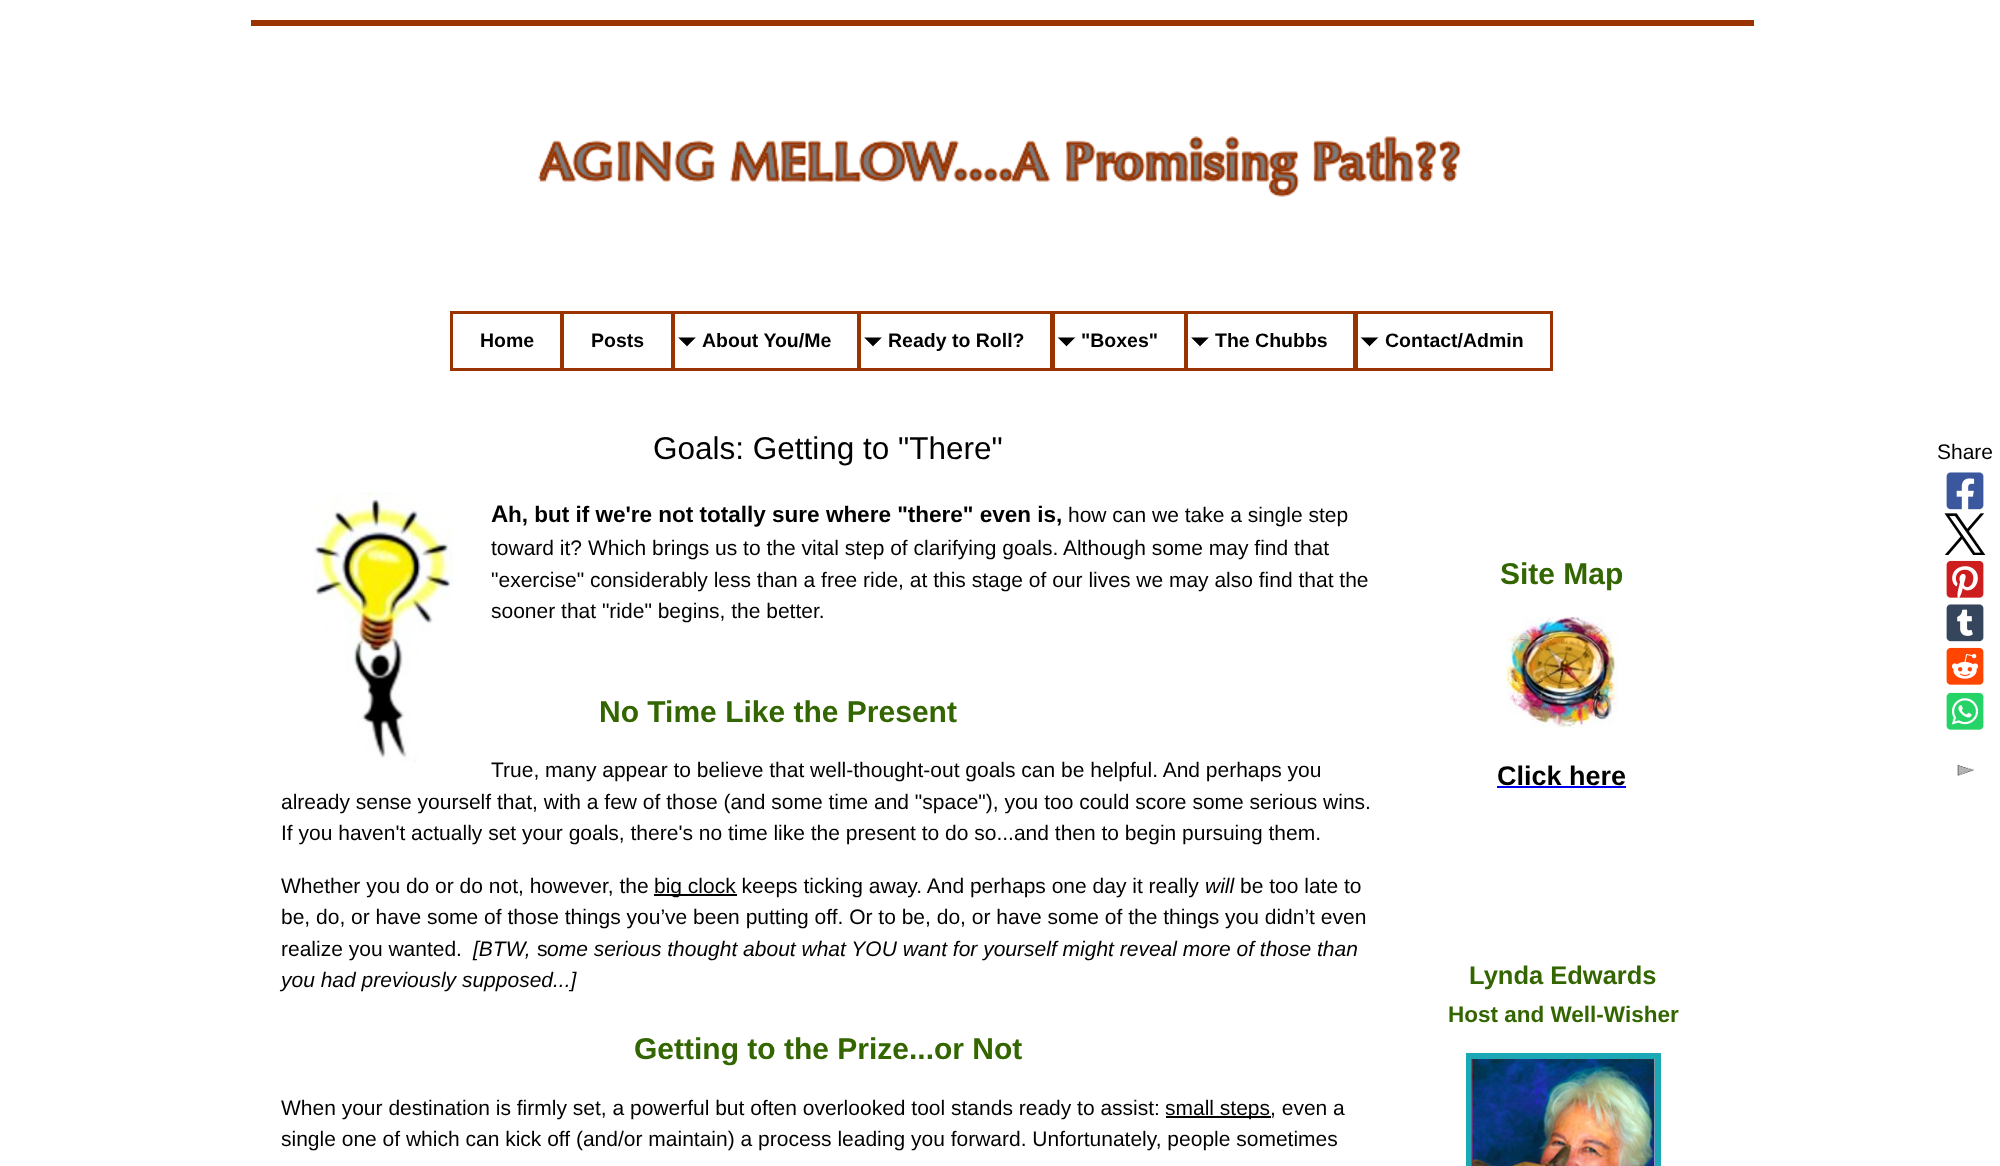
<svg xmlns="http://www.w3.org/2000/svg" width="2000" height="1166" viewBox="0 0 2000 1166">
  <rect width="100%" height="100%" fill="#ffffff"/>
  <image x="537" y="136" width="925" height="61" href="img1.png"/>
  <rect x="251" y="20" width="1503" height="6" fill="#993300"/>
  <rect x="451.5" y="312.5" width="110" height="57" fill="none" stroke="#993300" stroke-width="3"/>
  <text x="480" y="347" font-family="Liberation Sans" font-size="19.5" font-weight="bold" fill="#000000">Home</text>
  <rect x="562.5" y="312.5" width="110" height="57" fill="none" stroke="#993300" stroke-width="3"/>
  <text x="591" y="347" font-family="Liberation Sans" font-size="19.5" font-weight="bold" fill="#000000">Posts</text>
  <rect x="673.5" y="312.5" width="185" height="57" fill="none" stroke="#993300" stroke-width="3"/>
  <path d="M678 337.5H696L687 346.5Z" fill="#000000"/>
  <path d="M696 337.5V346.5H687ZM678 346.5V337.5L687 346.5Z" fill="#ffffff"/>
  <text x="702" y="347" font-family="Liberation Sans" font-size="19.5" font-weight="bold" fill="#000000">About You/Me</text>
  <rect x="859.5" y="312.5" width="192" height="57" fill="none" stroke="#993300" stroke-width="3"/>
  <path d="M864 337.5H882L873 346.5Z" fill="#000000"/>
  <path d="M882 337.5V346.5H873ZM864 346.5V337.5L873 346.5Z" fill="#ffffff"/>
  <text x="888" y="347" font-family="Liberation Sans" font-size="19.5" font-weight="bold" fill="#000000">Ready to Roll?</text>
  <rect x="1053.5" y="312.5" width="132" height="57" fill="none" stroke="#993300" stroke-width="3"/>
  <path d="M1057.5 337.5H1075.5L1066.5 346.5Z" fill="#000000"/>
  <path d="M1075.5 337.5V346.5H1066.5Z" fill="#ffffff"/>
  <path d="M1057.5 346.5V337.5L1066.5 346.5Z" fill="#ffffff"/>
  <text x="1081" y="347" font-family="Liberation Sans" font-size="19.5" font-weight="bold" fill="#000000">"Boxes"</text>
  <rect x="1186.5" y="312.5" width="168" height="57" fill="none" stroke="#993300" stroke-width="3"/>
  <path d="M1191 337.5H1209L1200 346.5Z" fill="#000000"/>
  <path d="M1209 337.5V346.5H1200ZM1191 346.5V337.5L1200 346.5Z" fill="#ffffff"/>
  <text x="1215" y="347" font-family="Liberation Sans" font-size="19.5" font-weight="bold" fill="#000000">The Chubbs</text>
  <rect x="1356.5" y="312.5" width="195" height="57" fill="none" stroke="#993300" stroke-width="3"/>
  <path d="M1360.5 337.5H1378.5L1369.5 346.5Z" fill="#000000"/>
  <path d="M1378.5 337.5V346.5H1369.5Z" fill="#ffffff"/>
  <path d="M1360.5 346.5V337.5L1369.5 346.5Z" fill="#ffffff"/>
  <text x="1385" y="347" font-family="Liberation Sans" font-size="19.5" font-weight="bold" fill="#000000">Contact/Admin</text>
  <text x="653" y="459" font-family="Liberation Sans" font-size="31.5" fill="#000000">Goals: Getting to "There"</text>
  <text x="1937" y="459" font-family="Liberation Sans" font-size="21" fill="#000000">Share</text>
  <image x="1946" y="472" width="38" height="38" href="img2.png"/>
  <image x="1944" y="513" width="42" height="42" href="img3.png"/>
  <image x="1946" y="560" width="38" height="38" href="img4.png"/>
  <image x="1946" y="604" width="38" height="38" href="img5.png"/>
  <image x="1946" y="647" width="38" height="38" href="img6.png"/>
  <image x="1946" y="692" width="38" height="38" href="img7.png"/>
  <image x="1957" y="764" width="18" height="12" href="img8.png"/>
  <image x="312" y="492" width="141" height="270" href="img9.png"/>
  <text x="491" y="522" font-family="Liberation Sans" font-size="24" font-weight="bold" fill="#000000">A</text>
  <text x="508" y="522" font-family="Liberation Sans" font-size="22.5" font-weight="bold" fill="#000000">h, but if we're not totally sure where "there" even is,</text>
  <text x="1068" y="522" font-family="Liberation Sans" font-size="21" fill="#000000">how can we take a single step</text>
  <text x="491" y="555" font-family="Liberation Sans" font-size="21" fill="#000000">toward it? Which brings us to the vital step of clarifying goals. Although some may find that</text>
  <text x="491" y="587" font-family="Liberation Sans" font-size="21" fill="#000000">"exercise" considerably less than a free ride, at this stage of our lives we may also find that the</text>
  <text x="491" y="618" font-family="Liberation Sans" font-size="21" fill="#000000">sooner that "ride" begins, the better.</text>
  <text x="599" y="722" font-family="Liberation Sans" font-size="30" font-weight="bold" fill="#336600">No Time Like the Present</text>
  <text x="491" y="777" font-family="Liberation Sans" font-size="21" fill="#000000">True, many appear to believe that well-thought-out goals can be helpful. And perhaps you</text>
  <text x="281" y="809" font-family="Liberation Sans" font-size="21" fill="#000000">already sense yourself that, with a few of those (and some time and "space"), you too could score some serious wins.</text>
  <text x="281" y="840" font-family="Liberation Sans" font-size="21" fill="#000000">If you haven't actually set your goals, there's no time like the present to do so...and then to begin pursuing them.</text>
  <text x="281" y="893" font-family="Liberation Sans" font-size="21" fill="#000000">Whether you do or do not, however, the</text>
  <rect x="654" y="894" width="83" height="2" fill="#000000"/>
  <text x="654" y="893" font-family="Liberation Sans" font-size="21" fill="#000000">big clock keeps ticking away. And perhaps one day it really</text>
  <text x="1205" y="893" font-family="Liberation Sans" font-size="21" font-style="italic" fill="#000000">will</text>
  <text x="1240" y="893" font-family="Liberation Sans" font-size="21" fill="#000000">be too late to</text>
  <text x="281" y="924" font-family="Liberation Sans" font-size="21" fill="#000000">be, do, or have some of those things you’ve been putting off. Or to be, do, or have some of the things you didn’t even</text>
  <text x="281" y="956" font-family="Liberation Sans" font-size="21" fill="#000000">realize you wanted.</text>
  <text x="473" y="956" font-family="Liberation Sans" font-size="21" font-style="italic" fill="#000000">[BTW,</text>
  <text x="537" y="956" font-family="Liberation Sans" font-size="21" fill="#000000">s</text>
  <text x="547" y="956" font-family="Liberation Sans" font-size="21" font-style="italic" fill="#000000">ome serious thought about what YOU want for yourself might reveal more of those than</text>
  <text x="281" y="987" font-family="Liberation Sans" font-size="21" font-style="italic" fill="#000000">you had previously supposed...]</text>
  <text x="634" y="1059" font-family="Liberation Sans" font-size="30" font-weight="bold" fill="#336600">Getting to the Prize...or Not</text>
  <text x="281" y="1115" font-family="Liberation Sans" font-size="21" fill="#000000">When your destination is firmly set, a powerful but often overlooked tool stands ready to assist:</text>
  <rect x="1166" y="1116" width="105" height="2" fill="#000000"/>
  <text x="1165" y="1115" font-family="Liberation Sans" font-size="21" fill="#000000">small steps, even a</text>
  <text x="281" y="1146" font-family="Liberation Sans" font-size="21" fill="#000000">single one of which can kick off (and/or maintain) a process leading you forward. Unfortunately, people sometimes</text>
  <text x="1500" y="584" font-family="Liberation Sans" font-size="30" font-weight="bold" fill="#336600">Site Map</text>
  <image x="1506" y="616" width="113" height="113" href="img10.png"/>
  <text x="1497" y="785" font-family="Liberation Sans" font-size="27" font-weight="bold" fill="#000000">Click here</text>
  <rect x="1497" y="786" width="129" height="2" fill="#0000ee"/>
  <text x="1469" y="984" font-family="Liberation Sans" font-size="25.5" font-weight="bold" fill="#336600">Lynda Edwards</text>
  <text x="1448" y="1022" font-family="Liberation Sans" font-size="22.5" font-weight="bold" fill="#336600">Host and Well-Wisher</text>
  <rect x="1469" y="1056" width="189" height="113" fill="none" stroke="#1da8b5" stroke-width="6"/>
  <image x="1471" y="1059" width="184" height="107" href="img11.png"/>
</svg>
